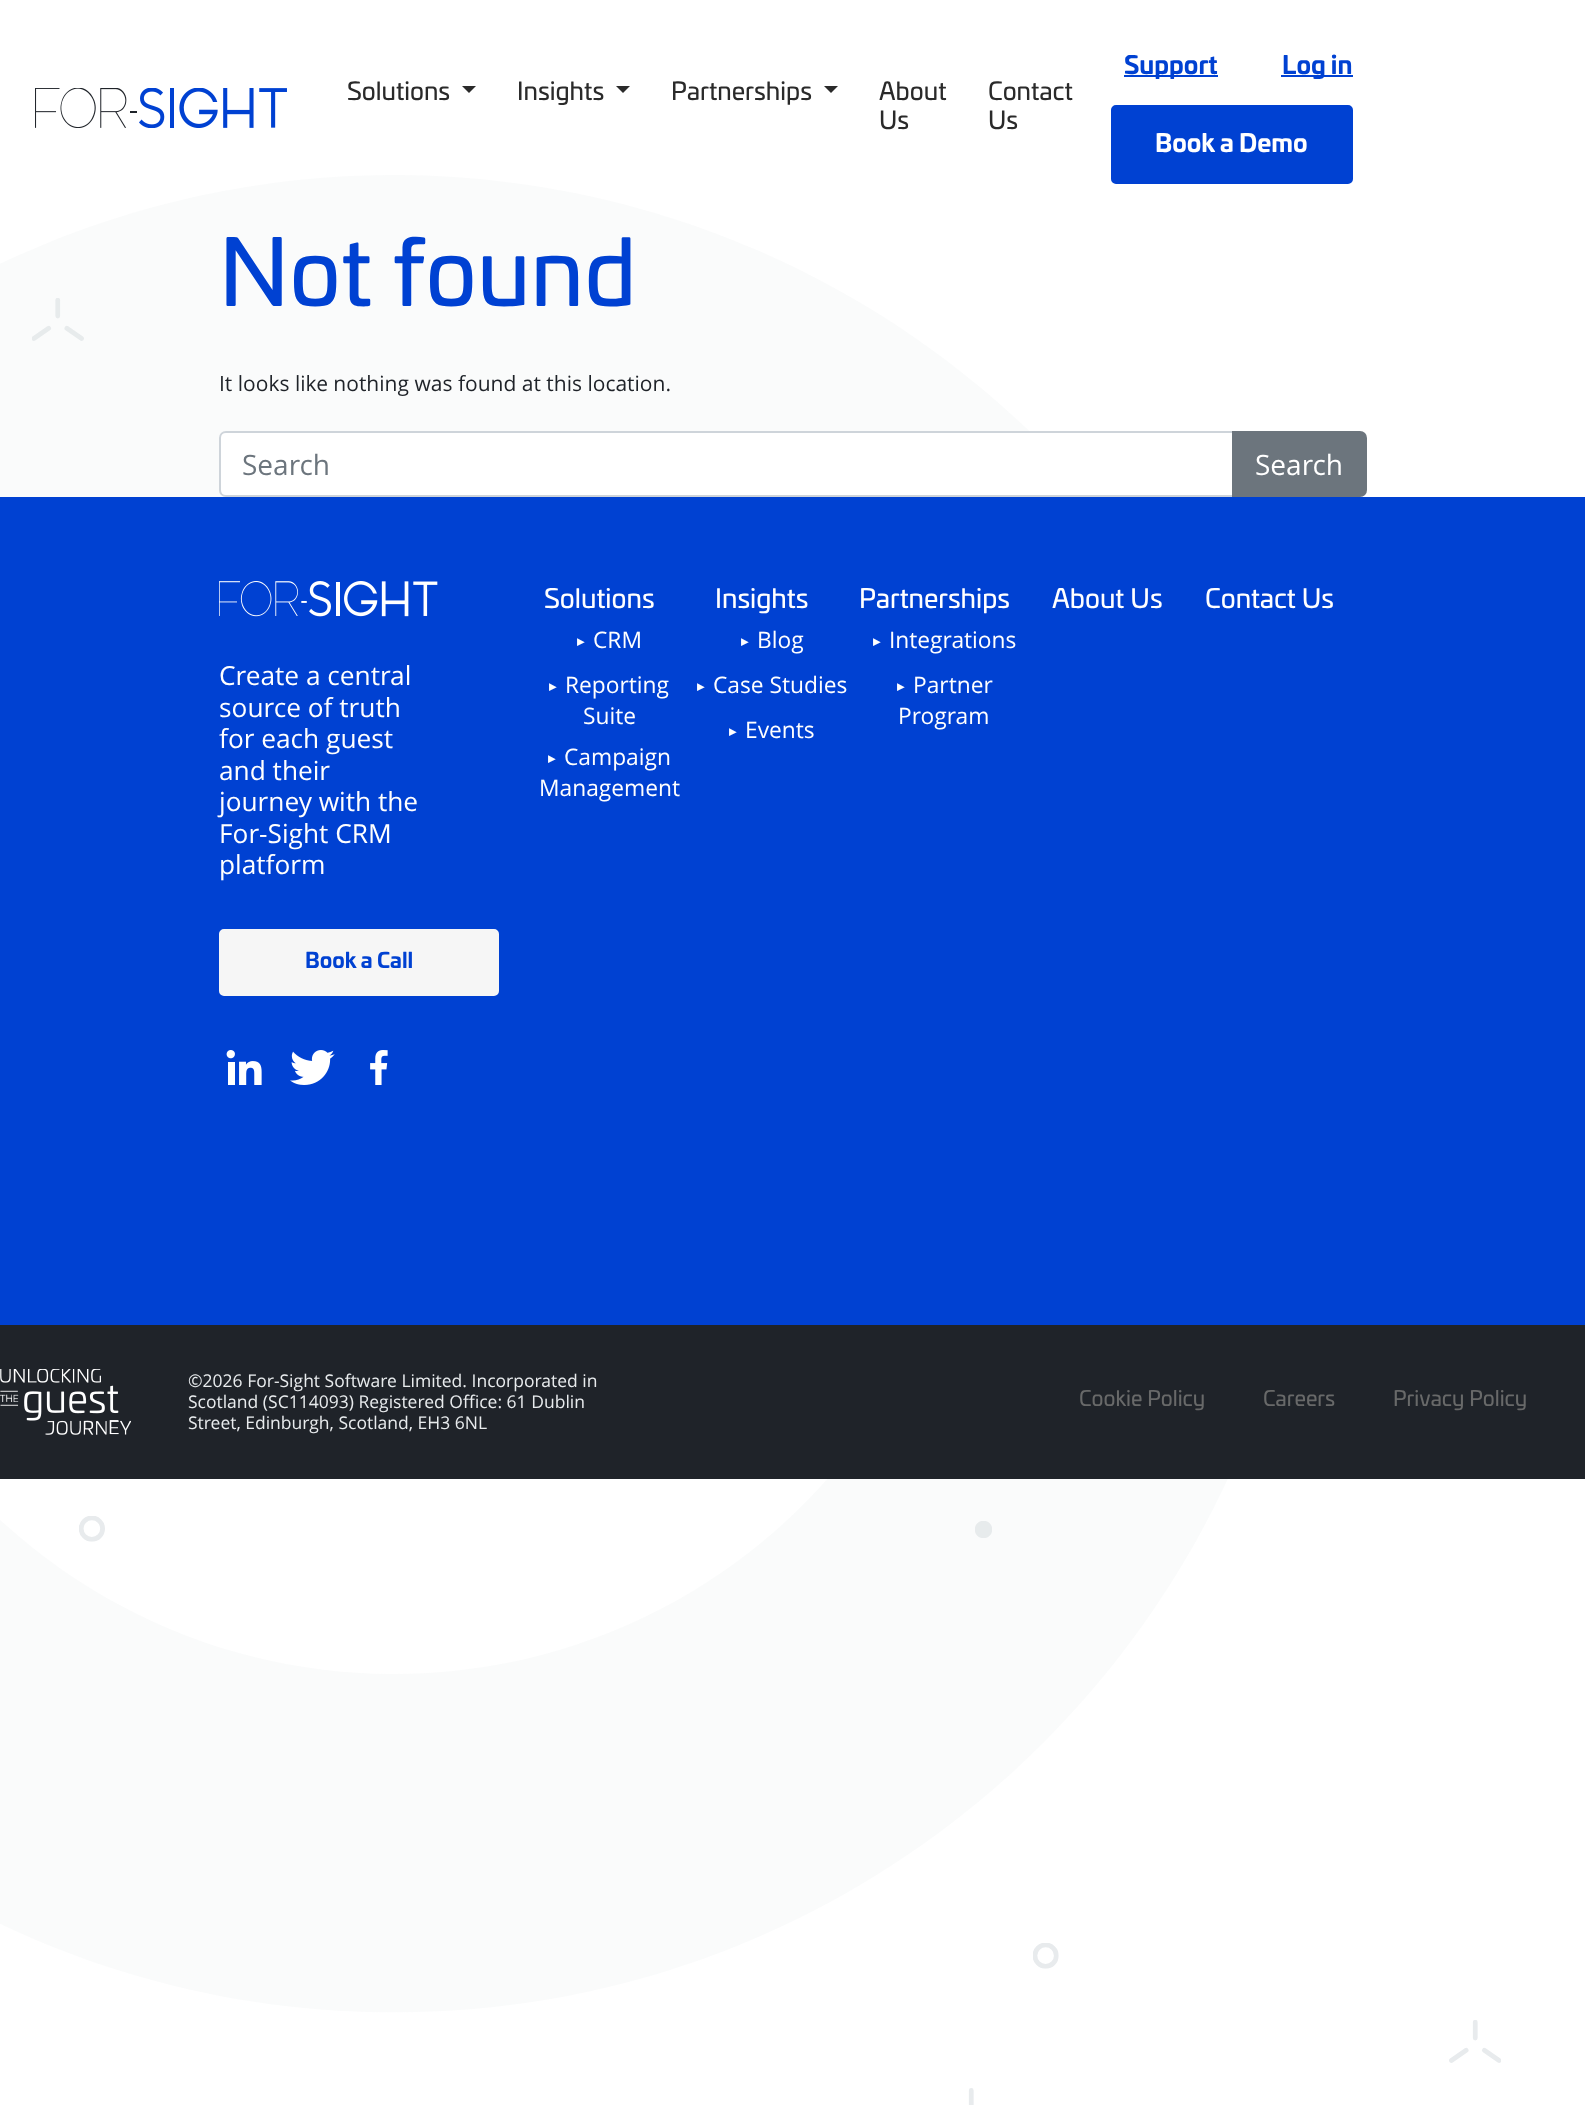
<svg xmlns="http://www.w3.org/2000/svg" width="1585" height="2105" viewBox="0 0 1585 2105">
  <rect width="100%" height="100%" fill="#ffffff"/>
  <image x="0" y="175" width="1501" height="1930" href="img1.png"/>
  <image x="35" y="88" width="252" height="40" href="img2.png"/>
  <text x="347" y="100" font-family="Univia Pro" font-size="24.5" fill="#2a2a2a">Solutions</text>
  <path d="M462 86H476L469 93Z" fill="#2a2a2a"/>
  <text x="517" y="100" font-family="Univia Pro" font-size="24.5" fill="#2a2a2a">Insights</text>
  <path d="M616 86H630L623 93Z" fill="#2a2a2a"/>
  <text x="671" y="100" font-family="Univia Pro" font-size="24.5" fill="#2a2a2a">Partnerships</text>
  <path d="M824 86H838L831 93Z" fill="#2a2a2a"/>
  <text x="879" y="100" font-family="Univia Pro" font-size="24.5" fill="#2a2a2a">About</text>
  <text x="879" y="129" font-family="Univia Pro" font-size="24.5" fill="#2a2a2a">Us</text>
  <text x="988" y="100" font-family="Univia Pro" font-size="24.5" fill="#2a2a2a">Contact</text>
  <text x="988" y="129" font-family="Univia Pro" font-size="24.5" fill="#2a2a2a">Us</text>
  <rect x="1124" y="75" width="94" height="2" fill="#0041d2"/>
  <text x="1124" y="74" font-family="Univia Pro" font-size="24.5" font-weight="bold" fill="#0041d2">Support</text>
  <rect x="1281" y="75" width="72" height="2" fill="#0041d2"/>
  <text x="1282" y="74" font-family="Univia Pro" font-size="24.5" font-weight="bold" fill="#0041d2">Log in</text>
  <rect x="1112" y="106" width="240" height="77" rx="4" fill="#0041d2" stroke="#0041d2" stroke-width="2"/>
  <text x="1155" y="152" font-family="Univia Pro" font-size="24.5" font-weight="bold" fill="#ffffff">Book a Demo</text>
  <text x="219" y="306" font-family="Univia Pro" font-size="91" fill="#0041d2">Not found</text>
  <text x="219" y="391" font-family="Open Sans" font-size="21" fill="#1f2329">It looks like nothing was found at this location.</text>
  <path d="M226 432H1233V496H226C222.5 496 220 493.5 220 490V438C220 434.5 222.5 432 226 432Z" fill="#ffffff" stroke="#ced4da" stroke-width="2"/>
  <text x="242" y="475" font-family="Open Sans" font-size="28" fill="#6c757d">Search</text>
  <path d="M1233 432H1360C1363.5 432 1366 434.5 1366 438V490C1366 493.5 1363.5 496 1360 496H1233Z" fill="#6c757d" stroke="#6c757d" stroke-width="2"/>
  <text x="1255" y="475" font-family="Open Sans" font-size="28" fill="#ffffff">Search</text>
  <rect x="0" y="497" width="1585" height="828" fill="#0041d2"/>
  <image x="219" y="581" width="219" height="36" href="img3.png"/>
  <text x="219" y="685" font-family="Open Sans" font-size="26.25" fill="#ffffff">Create a central</text>
  <text x="219" y="717" font-family="Open Sans" font-size="26.25" fill="#ffffff">source of truth</text>
  <text x="219" y="748" font-family="Open Sans" font-size="26.25" fill="#ffffff">for each guest</text>
  <text x="219" y="780" font-family="Open Sans" font-size="26.25" fill="#ffffff">and their</text>
  <text x="219" y="811" font-family="Open Sans" font-size="26.25" fill="#ffffff">journey with the</text>
  <text x="219" y="843" font-family="Open Sans" font-size="26.25" fill="#ffffff">For-Sight CRM</text>
  <text x="219" y="874" font-family="Open Sans" font-size="26.25" fill="#ffffff">platform</text>
  <rect x="220" y="930" width="278" height="65" rx="4" fill="#f6f6f6" stroke="#f6f6f6" stroke-width="2"/>
  <text x="305" y="968" font-family="Univia Pro" font-size="21" font-weight="bold" fill="#0041d2">Book a Call</text>
  <image x="226" y="1050" width="36" height="35" href="img4.png"/>
  <image x="290" y="1050" width="45" height="35" href="img5.png"/>
  <image x="370" y="1050" width="18" height="35" href="img6.png"/>
  <text x="544" y="608" font-family="Univia Pro" font-size="26.25" fill="#ffffff">Solutions</text>
  <text x="577" y="646" font-family="DejaVu Sans" font-size="14" font-weight="bold" fill="#ffffff">▸</text>
  <text x="593" y="648" font-family="Open Sans" font-size="22.75" fill="#ffffff">CRM</text>
  <text x="549" y="691" font-family="DejaVu Sans" font-size="14" font-weight="bold" fill="#ffffff">▸</text>
  <text x="565" y="693" font-family="Open Sans" font-size="22.75" fill="#ffffff">Reporting</text>
  <text x="583" y="724" font-family="Open Sans" font-size="22.75" fill="#ffffff">Suite</text>
  <text x="548" y="763" font-family="DejaVu Sans" font-size="14" font-weight="bold" fill="#ffffff">▸</text>
  <text x="564" y="765" font-family="Open Sans" font-size="22.75" fill="#ffffff">Campaign</text>
  <text x="539" y="796" font-family="Open Sans" font-size="22.75" fill="#ffffff">Management</text>
  <text x="715" y="608" font-family="Univia Pro" font-size="26.25" fill="#ffffff">Insights</text>
  <text x="741" y="646" font-family="DejaVu Sans" font-size="14" font-weight="bold" fill="#ffffff">▸</text>
  <text x="757" y="648" font-family="Open Sans" font-size="22.75" fill="#ffffff">Blog</text>
  <text x="697" y="691" font-family="DejaVu Sans" font-size="14" font-weight="bold" fill="#ffffff">▸</text>
  <text x="713" y="693" font-family="Open Sans" font-size="22.75" fill="#ffffff">Case Studies</text>
  <text x="729" y="736" font-family="DejaVu Sans" font-size="14" font-weight="bold" fill="#ffffff">▸</text>
  <text x="745" y="738" font-family="Open Sans" font-size="22.75" fill="#ffffff">Events</text>
  <text x="859" y="608" font-family="Univia Pro" font-size="26.25" fill="#ffffff">Partnerships</text>
  <text x="873" y="646" font-family="DejaVu Sans" font-size="14" font-weight="bold" fill="#ffffff">▸</text>
  <text x="889" y="648" font-family="Open Sans" font-size="22.75" fill="#ffffff">Integrations</text>
  <text x="897" y="691" font-family="DejaVu Sans" font-size="14" font-weight="bold" fill="#ffffff">▸</text>
  <text x="913" y="693" font-family="Open Sans" font-size="22.75" fill="#ffffff">Partner</text>
  <text x="898" y="724" font-family="Open Sans" font-size="22.75" fill="#ffffff">Program</text>
  <text x="1052" y="608" font-family="Univia Pro" font-size="26.25" fill="#ffffff">About Us</text>
  <text x="1205" y="608" font-family="Univia Pro" font-size="26.25" fill="#ffffff">Contact Us</text>
  <rect x="0" y="1325" width="1585" height="154" fill="#1f2329"/>
  <image x="0" y="1369" width="131" height="66" href="img7.png"/>
  <text x="188" y="1387" font-family="Open Sans" font-size="17.5" fill="#e8ebed">©2026 For-Sight Software Limited. Incorporated in</text>
  <text x="188" y="1408" font-family="Open Sans" font-size="17.5" fill="#e8ebed">Scotland (SC114093) Registered Office: 61 Dublin</text>
  <text x="188" y="1429" font-family="Open Sans" font-size="17.5" fill="#e8ebed">Street, Edinburgh, Scotland, EH3 6NL</text>
  <text x="1079" y="1406" font-family="Univia Pro" font-size="21" fill="#686969">Cookie Policy</text>
  <text x="1263" y="1406" font-family="Univia Pro" font-size="21" fill="#686969">Careers</text>
  <text x="1393" y="1406" font-family="Univia Pro" font-size="21" fill="#686969">Privacy Policy</text>
</svg>
